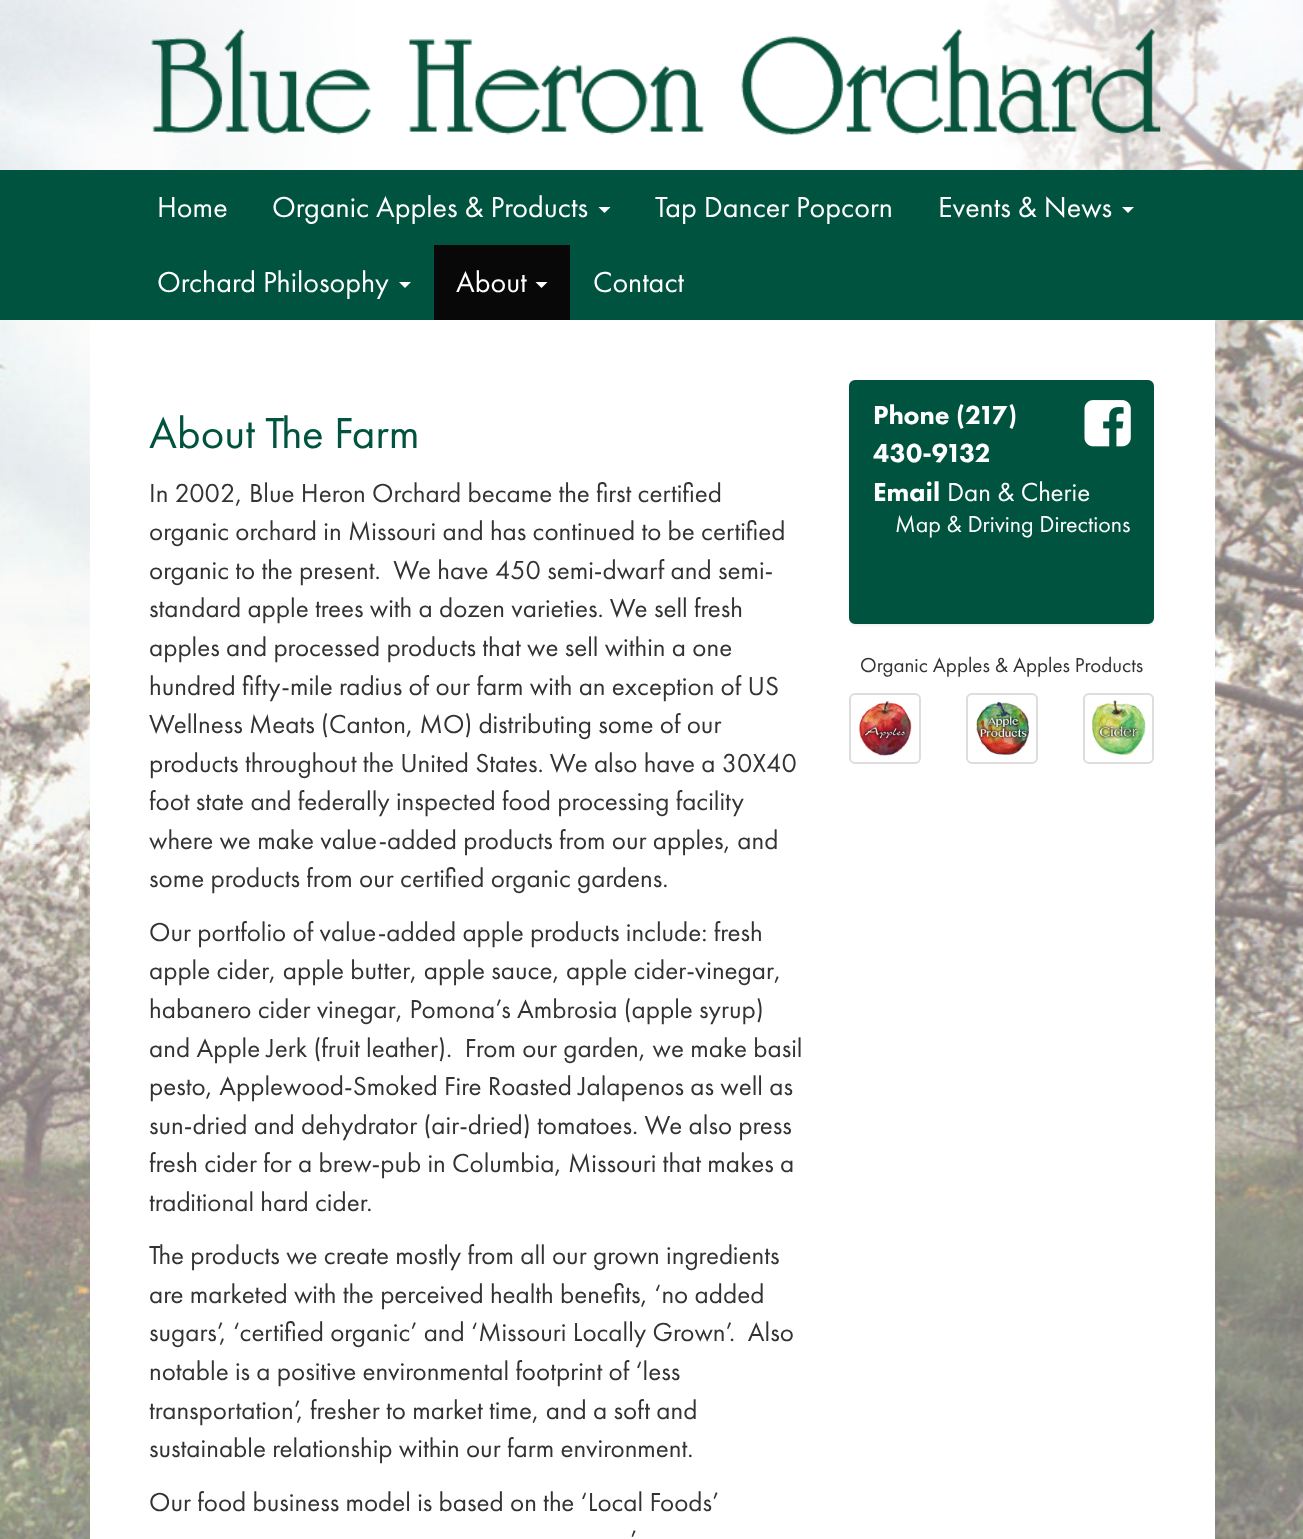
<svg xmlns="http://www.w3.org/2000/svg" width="1303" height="1539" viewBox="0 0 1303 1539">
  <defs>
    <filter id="blur1" x="-50%" y="-200%" width="200%" height="500%"><feGaussianBlur stdDeviation="1"/></filter>
  </defs>
  <rect width="100%" height="100%" fill="#ffffff"/>
  <image x="0" y="0" width="1303" height="1539" href="img1.png"/>
  <image x="151" y="28" width="1010" height="107" href="img2.png"/>
  <rect x="0" y="170" width="1303" height="150" fill="#00533e"/>
  <text x="157" y="217" font-family="Futura PT" font-size="30" fill="#ffffff">Home</text>
  <text x="272" y="217" font-family="Futura PT" font-size="30" fill="#ffffff">Organic Apples &amp; Products</text>
  <path d="M598.5 207H610.5L604.5 213Z" fill="#ffffff"/>
  <text x="655" y="217" font-family="Futura PT" font-size="30" fill="#ffffff">Tap Dancer Popcorn</text>
  <text x="938" y="217" font-family="Futura PT" font-size="30" fill="#ffffff">Events &amp; News</text>
  <path d="M1122 207H1134L1128 213Z" fill="#ffffff"/>
  <text x="157" y="292" font-family="Futura PT" font-size="30" fill="#ffffff">Orchard Philosophy</text>
  <path d="M399 282H411L405 288Z" fill="#ffffff"/>
  <rect x="434" y="245" width="136" height="75" fill="#080808"/>
  <text x="456" y="292" font-family="Futura PT" font-size="30" fill="#ffffff">About</text>
  <path d="M535.5 282H547.5L541.5 288Z" fill="#ffffff"/>
  <text x="593" y="292" font-family="Futura PT" font-size="30" fill="#ffffff">Contact</text>
  <rect x="90" y="320" width="1125" height="1219" fill="#ffffff"/>
  <text x="149" y="448" font-family="Futura PT" font-size="45" fill="#00533e">About The Farm</text>
  <text x="149" y="502" font-family="Futura PT" font-size="27" fill="#333333">In 2002, Blue Heron Orchard became the first certified</text>
  <text x="149" y="540" font-family="Futura PT" font-size="27" fill="#333333">organic orchard in Missouri and has continued to be certified</text>
  <text x="149" y="579" font-family="Futura PT" font-size="27" fill="#333333" xml:space="preserve">organic to the present.  We have 450 semi-dwarf and semi-</text>
  <text x="149" y="617" font-family="Futura PT" font-size="27" fill="#333333">standard apple trees with a dozen varieties. We sell fresh</text>
  <text x="149" y="656" font-family="Futura PT" font-size="27" fill="#333333">apples and processed products that we sell within a one</text>
  <text x="149" y="695" font-family="Futura PT" font-size="27" fill="#333333">hundred fifty-mile radius of our farm with an exception of US</text>
  <text x="149" y="733" font-family="Futura PT" font-size="27" fill="#333333">Wellness Meats (Canton, MO) distributing some of our</text>
  <text x="149" y="772" font-family="Futura PT" font-size="27" fill="#333333">products throughout the United States. We also have a 30X40</text>
  <text x="149" y="810" font-family="Futura PT" font-size="27" fill="#333333">foot state and federally inspected food processing facility</text>
  <text x="149" y="849" font-family="Futura PT" font-size="27" fill="#333333">where we make value-added products from our apples, and</text>
  <text x="149" y="887" font-family="Futura PT" font-size="27" fill="#333333">some products from our certified organic gardens.</text>
  <text x="149" y="941" font-family="Futura PT" font-size="27" fill="#333333">Our portfolio of value-added apple products include: fresh</text>
  <text x="149" y="979" font-family="Futura PT" font-size="27" fill="#333333">apple cider, apple butter, apple sauce, apple cider-vinegar,</text>
  <text x="149" y="1018" font-family="Futura PT" font-size="27" fill="#333333">habanero cider vinegar, Pomona’s Ambrosia (apple syrup)</text>
  <text x="149" y="1057" font-family="Futura PT" font-size="27" fill="#333333" xml:space="preserve">and Apple Jerk (fruit leather).  From our garden, we make basil</text>
  <text x="149" y="1095" font-family="Futura PT" font-size="27" fill="#333333">pesto, Applewood-Smoked Fire Roasted Jalapenos as well as</text>
  <text x="149" y="1134" font-family="Futura PT" font-size="27" fill="#333333">sun-dried and dehydrator (air-dried) tomatoes. We also press</text>
  <text x="149" y="1172" font-family="Futura PT" font-size="27" fill="#333333">fresh cider for a brew-pub in Columbia, Missouri that makes a</text>
  <text x="149" y="1211" font-family="Futura PT" font-size="27" fill="#333333">traditional hard cider.</text>
  <text x="149" y="1264" font-family="Futura PT" font-size="27" fill="#333333">The products we create mostly from all our grown ingredients</text>
  <text x="149" y="1303" font-family="Futura PT" font-size="27" fill="#333333">are marketed with the perceived health benefits, ‘no added</text>
  <text x="149" y="1341" font-family="Futura PT" font-size="27" fill="#333333" xml:space="preserve">sugars’, ‘certified organic’ and ‘Missouri Locally Grown’.  Also</text>
  <text x="149" y="1380" font-family="Futura PT" font-size="27" fill="#333333">notable is a positive environmental footprint of ‘less</text>
  <text x="149" y="1419" font-family="Futura PT" font-size="27" fill="#333333">transportation’, fresher to market time, and a soft and</text>
  <text x="149" y="1457" font-family="Futura PT" font-size="27" fill="#333333">sustainable relationship within our farm environment.</text>
  <text x="149" y="1511" font-family="Futura PT" font-size="27" fill="#333333">Our food business model is based on the ‘Local Foods’</text>
  <text x="630" y="1549" font-family="Futura PT" font-size="27" fill="#333333">’</text>
  <rect x="849" y="381" width="305" height="245" rx="6" fill="#000000" fill-opacity="0.05" filter="url(#blur1)"/>
  <rect x="850" y="381" width="303" height="242" rx="5" fill="#00533e" stroke="#00533e" stroke-width="2"/>
  <text x="873" y="424" font-family="Futura PT" font-size="27" font-weight="900" fill="#ffffff">Phone (217)</text>
  <image x="1084" y="400" width="47" height="47" href="img3.png"/>
  <text x="873" y="462" font-family="Futura PT" font-size="27" font-weight="900" fill="#ffffff">430-9132</text>
  <text x="873" y="501" font-family="Futura PT" font-size="27" font-weight="900" fill="#ffffff">Email</text>
  <text x="947" y="501" font-family="Futura PT" font-size="27" fill="#ffffff">Dan &amp; Cherie</text>
  <text x="895" y="532" font-family="Futura PT" font-size="24" fill="#ffffff">Map &amp; Driving Directions</text>
  <text x="860" y="672" font-family="Futura PT" font-size="21" fill="#333333">Organic Apples &amp; Apples Products</text>
  <rect x="850" y="694" width="70" height="69" rx="5" fill="none" stroke="#dddddd" stroke-width="2"/>
  <image x="858" y="701" width="54" height="55" href="img4.png"/>
  <rect x="967" y="694" width="70" height="69" rx="5" fill="none" stroke="#dddddd" stroke-width="2"/>
  <image x="976" y="701" width="53" height="55" href="img5.png"/>
  <rect x="1084" y="694" width="69" height="69" rx="5" fill="none" stroke="#dddddd" stroke-width="2"/>
  <image x="1092" y="700" width="54" height="56" href="img6.png"/>
</svg>
